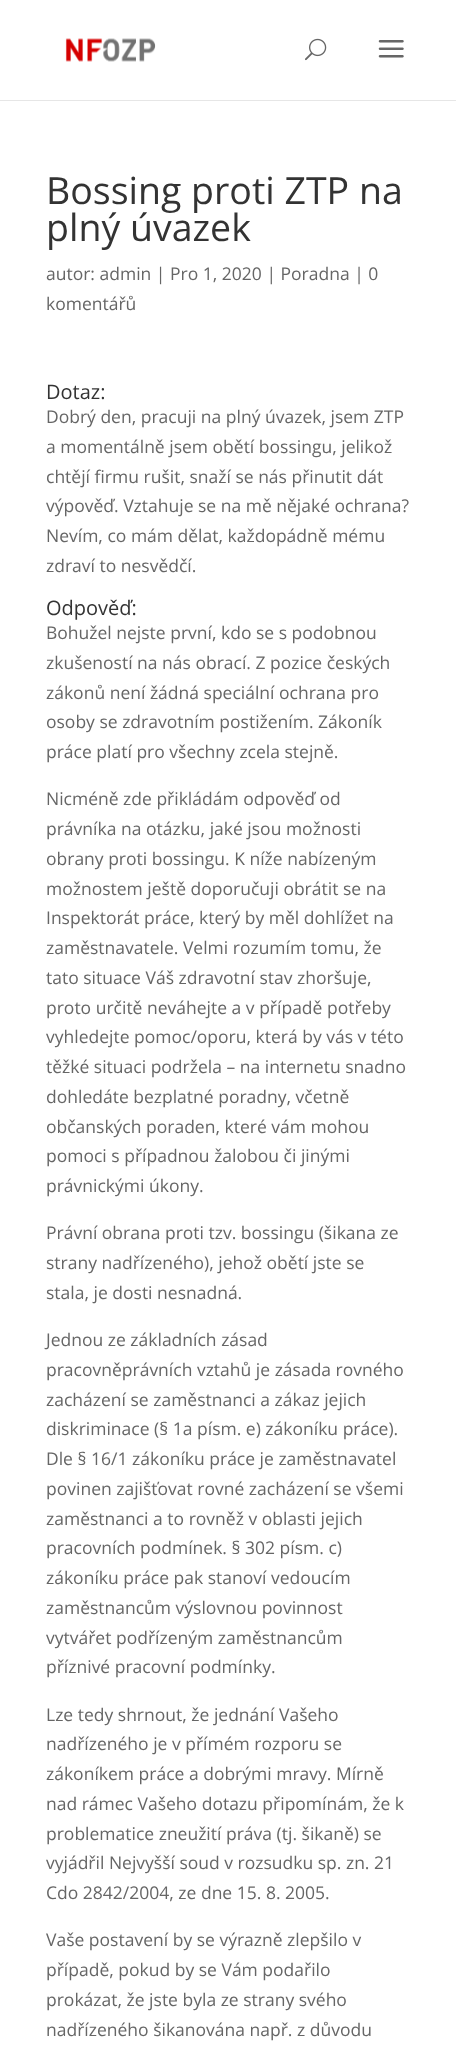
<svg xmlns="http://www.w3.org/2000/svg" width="456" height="2056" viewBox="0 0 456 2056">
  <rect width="100%" height="100%" fill="#ffffff"/>
  <rect x="0" y="100" width="456" height="1" fill="#e6e6e6"/>
  <image x="65" y="38" width="91" height="24" href="img1.png"/>
  <image x="305" y="38" width="22" height="23" href="img2.png"/>
  <image x="378" y="40" width="26" height="18" href="img3.png"/>
  <text x="46" y="204" font-family="Open Sans" font-size="37.5" fill="#333333">Bossing proti ZTP na</text>
  <text x="46" y="241" font-family="Open Sans" font-size="37.5" fill="#333333">plný úvazek</text>
  <text x="46" y="280" font-family="Open Sans" font-size="17.5" fill="#666666">autor: admin | Pro 1, 2020 | Poradna | 0</text>
  <text x="46" y="310" font-family="Open Sans" font-size="17.5" fill="#666666">komentářů</text>
  <text x="46" y="399" font-family="Open Sans" font-size="20" fill="#333333">Dotaz:</text>
  <text x="46" y="423" font-family="Open Sans" font-size="17.5" fill="#666666">Dobrý den, pracuji na plný úvazek, jsem ZTP</text>
  <text x="46" y="453" font-family="Open Sans" font-size="17.5" fill="#666666">a momentálně jsem obětí bossingu, jelikož</text>
  <text x="46" y="483" font-family="Open Sans" font-size="17.5" fill="#666666">chtějí firmu rušit, snaží se nás přinutit dát</text>
  <text x="46" y="512" font-family="Open Sans" font-size="17.5" fill="#666666">výpověď. Vztahuje se na mě nějaké ochrana?</text>
  <text x="46" y="542" font-family="Open Sans" font-size="17.5" fill="#666666">Nevím, co mám dělat, každopádně mému</text>
  <text x="46" y="572" font-family="Open Sans" font-size="17.5" fill="#666666">zdraví to nesvědčí.</text>
  <text x="46" y="615" font-family="Open Sans" font-size="20" fill="#333333">Odpověď:</text>
  <text x="46" y="639" font-family="Open Sans" font-size="17.5" fill="#666666">Bohužel nejste první, kdo se s podobnou</text>
  <text x="46" y="669" font-family="Open Sans" font-size="17.5" fill="#666666">zkušeností na nás obrací. Z pozice českých</text>
  <text x="46" y="699" font-family="Open Sans" font-size="17.5" fill="#666666">zákonů není žádná speciální ochrana pro</text>
  <text x="46" y="728" font-family="Open Sans" font-size="17.5" fill="#666666">osoby se zdravotním postižením. Zákoník</text>
  <text x="46" y="758" font-family="Open Sans" font-size="17.5" fill="#666666">práce platí pro všechny zcela stejně.</text>
  <text x="46" y="805" font-family="Open Sans" font-size="17.5" fill="#666666">Nicméně zde přikládám odpověď od</text>
  <text x="46" y="835" font-family="Open Sans" font-size="17.5" fill="#666666">právníka na otázku, jaké jsou možnosti</text>
  <text x="46" y="865" font-family="Open Sans" font-size="17.5" fill="#666666">obrany proti bossingu. K níže nabízeným</text>
  <text x="46" y="895" font-family="Open Sans" font-size="17.5" fill="#666666">možnostem ještě doporučuji obrátit se na</text>
  <text x="46" y="924" font-family="Open Sans" font-size="17.5" fill="#666666">Inspektorát práce, který by měl dohlížet na</text>
  <text x="46" y="954" font-family="Open Sans" font-size="17.5" fill="#666666">zaměstnavatele. Velmi rozumím tomu, že</text>
  <text x="46" y="984" font-family="Open Sans" font-size="17.5" fill="#666666">tato situace Váš zdravotní stav zhoršuje,</text>
  <text x="46" y="1014" font-family="Open Sans" font-size="17.5" fill="#666666">proto určitě neváhejte a v případě potřeby</text>
  <text x="46" y="1043" font-family="Open Sans" font-size="17.5" fill="#666666">vyhledejte pomoc/oporu, která by vás v této</text>
  <text x="46" y="1073" font-family="Open Sans" font-size="17.5" fill="#666666">těžké situaci podržela – na internetu snadno</text>
  <text x="46" y="1103" font-family="Open Sans" font-size="17.5" fill="#666666">dohledáte bezplatné poradny, včetně</text>
  <text x="46" y="1133" font-family="Open Sans" font-size="17.5" fill="#666666">občanských poraden, které vám mohou</text>
  <text x="46" y="1162" font-family="Open Sans" font-size="17.5" fill="#666666">pomoci s případnou žalobou či jinými</text>
  <text x="46" y="1192" font-family="Open Sans" font-size="17.5" fill="#666666">právnickými úkony.</text>
  <text x="46" y="1239" font-family="Open Sans" font-size="17.5" fill="#666666">Právní obrana proti tzv. bossingu (šikana ze</text>
  <text x="46" y="1269" font-family="Open Sans" font-size="17.5" fill="#666666">strany nadřízeného), jehož obětí jste se</text>
  <text x="46" y="1299" font-family="Open Sans" font-size="17.5" fill="#666666">stala, je dosti nesnadná.</text>
  <text x="46" y="1346" font-family="Open Sans" font-size="17.5" fill="#666666">Jednou ze základních zásad</text>
  <text x="46" y="1376" font-family="Open Sans" font-size="17.5" fill="#666666">pracovněprávních vztahů je zásada rovného</text>
  <text x="46" y="1406" font-family="Open Sans" font-size="17.5" fill="#666666">zacházení se zaměstnanci a zákaz jejich</text>
  <text x="46" y="1435" font-family="Open Sans" font-size="17.5" fill="#666666">diskriminace (§ 1a písm. e) zákoníku práce).</text>
  <text x="46" y="1465" font-family="Open Sans" font-size="17.5" fill="#666666">Dle § 16/1 zákoníku práce je zaměstnavatel</text>
  <text x="46" y="1495" font-family="Open Sans" font-size="17.5" fill="#666666">povinen zajišťovat rovné zacházení se všemi</text>
  <text x="46" y="1525" font-family="Open Sans" font-size="17.5" fill="#666666">zaměstnanci a to rovněž v oblasti jejich</text>
  <text x="46" y="1554" font-family="Open Sans" font-size="17.5" fill="#666666">pracovních podmínek. § 302 písm. c)</text>
  <text x="46" y="1584" font-family="Open Sans" font-size="17.5" fill="#666666">zákoníku práce pak stanoví vedoucím</text>
  <text x="46" y="1614" font-family="Open Sans" font-size="17.5" fill="#666666">zaměstnancům výslovnou povinnost</text>
  <text x="46" y="1644" font-family="Open Sans" font-size="17.5" fill="#666666">vytvářet podřízeným zaměstnancům</text>
  <text x="46" y="1673" font-family="Open Sans" font-size="17.5" fill="#666666">příznivé pracovní podmínky.</text>
  <text x="46" y="1721" font-family="Open Sans" font-size="17.5" fill="#666666">Lze tedy shrnout, že jednání Vašeho</text>
  <text x="46" y="1750" font-family="Open Sans" font-size="17.5" fill="#666666">nadřízeného je v přímém rozporu se</text>
  <text x="46" y="1780" font-family="Open Sans" font-size="17.5" fill="#666666">zákoníkem práce a dobrými mravy. Mírně</text>
  <text x="46" y="1810" font-family="Open Sans" font-size="17.5" fill="#666666">nad rámec Vašeho dotazu připomínám, že k</text>
  <text x="46" y="1840" font-family="Open Sans" font-size="17.5" fill="#666666">problematice zneužití práva (tj. šikaně) se</text>
  <text x="46" y="1869" font-family="Open Sans" font-size="17.5" fill="#666666">vyjádřil Nejvyšší soud v rozsudku sp. zn. 21</text>
  <text x="46" y="1899" font-family="Open Sans" font-size="17.5" fill="#666666">Cdo 2842/2004, ze dne 15. 8. 2005.</text>
  <text x="46" y="1946" font-family="Open Sans" font-size="17.5" fill="#666666">Vaše postavení by se výrazně zlepšilo v</text>
  <text x="46" y="1976" font-family="Open Sans" font-size="17.5" fill="#666666">případě, pokud by se Vám podařilo</text>
  <text x="46" y="2006" font-family="Open Sans" font-size="17.5" fill="#666666">prokázat, že jste byla ze strany svého</text>
  <text x="46" y="2036" font-family="Open Sans" font-size="17.5" fill="#666666">nadřízeného šikanována např. z důvodu</text>
</svg>
